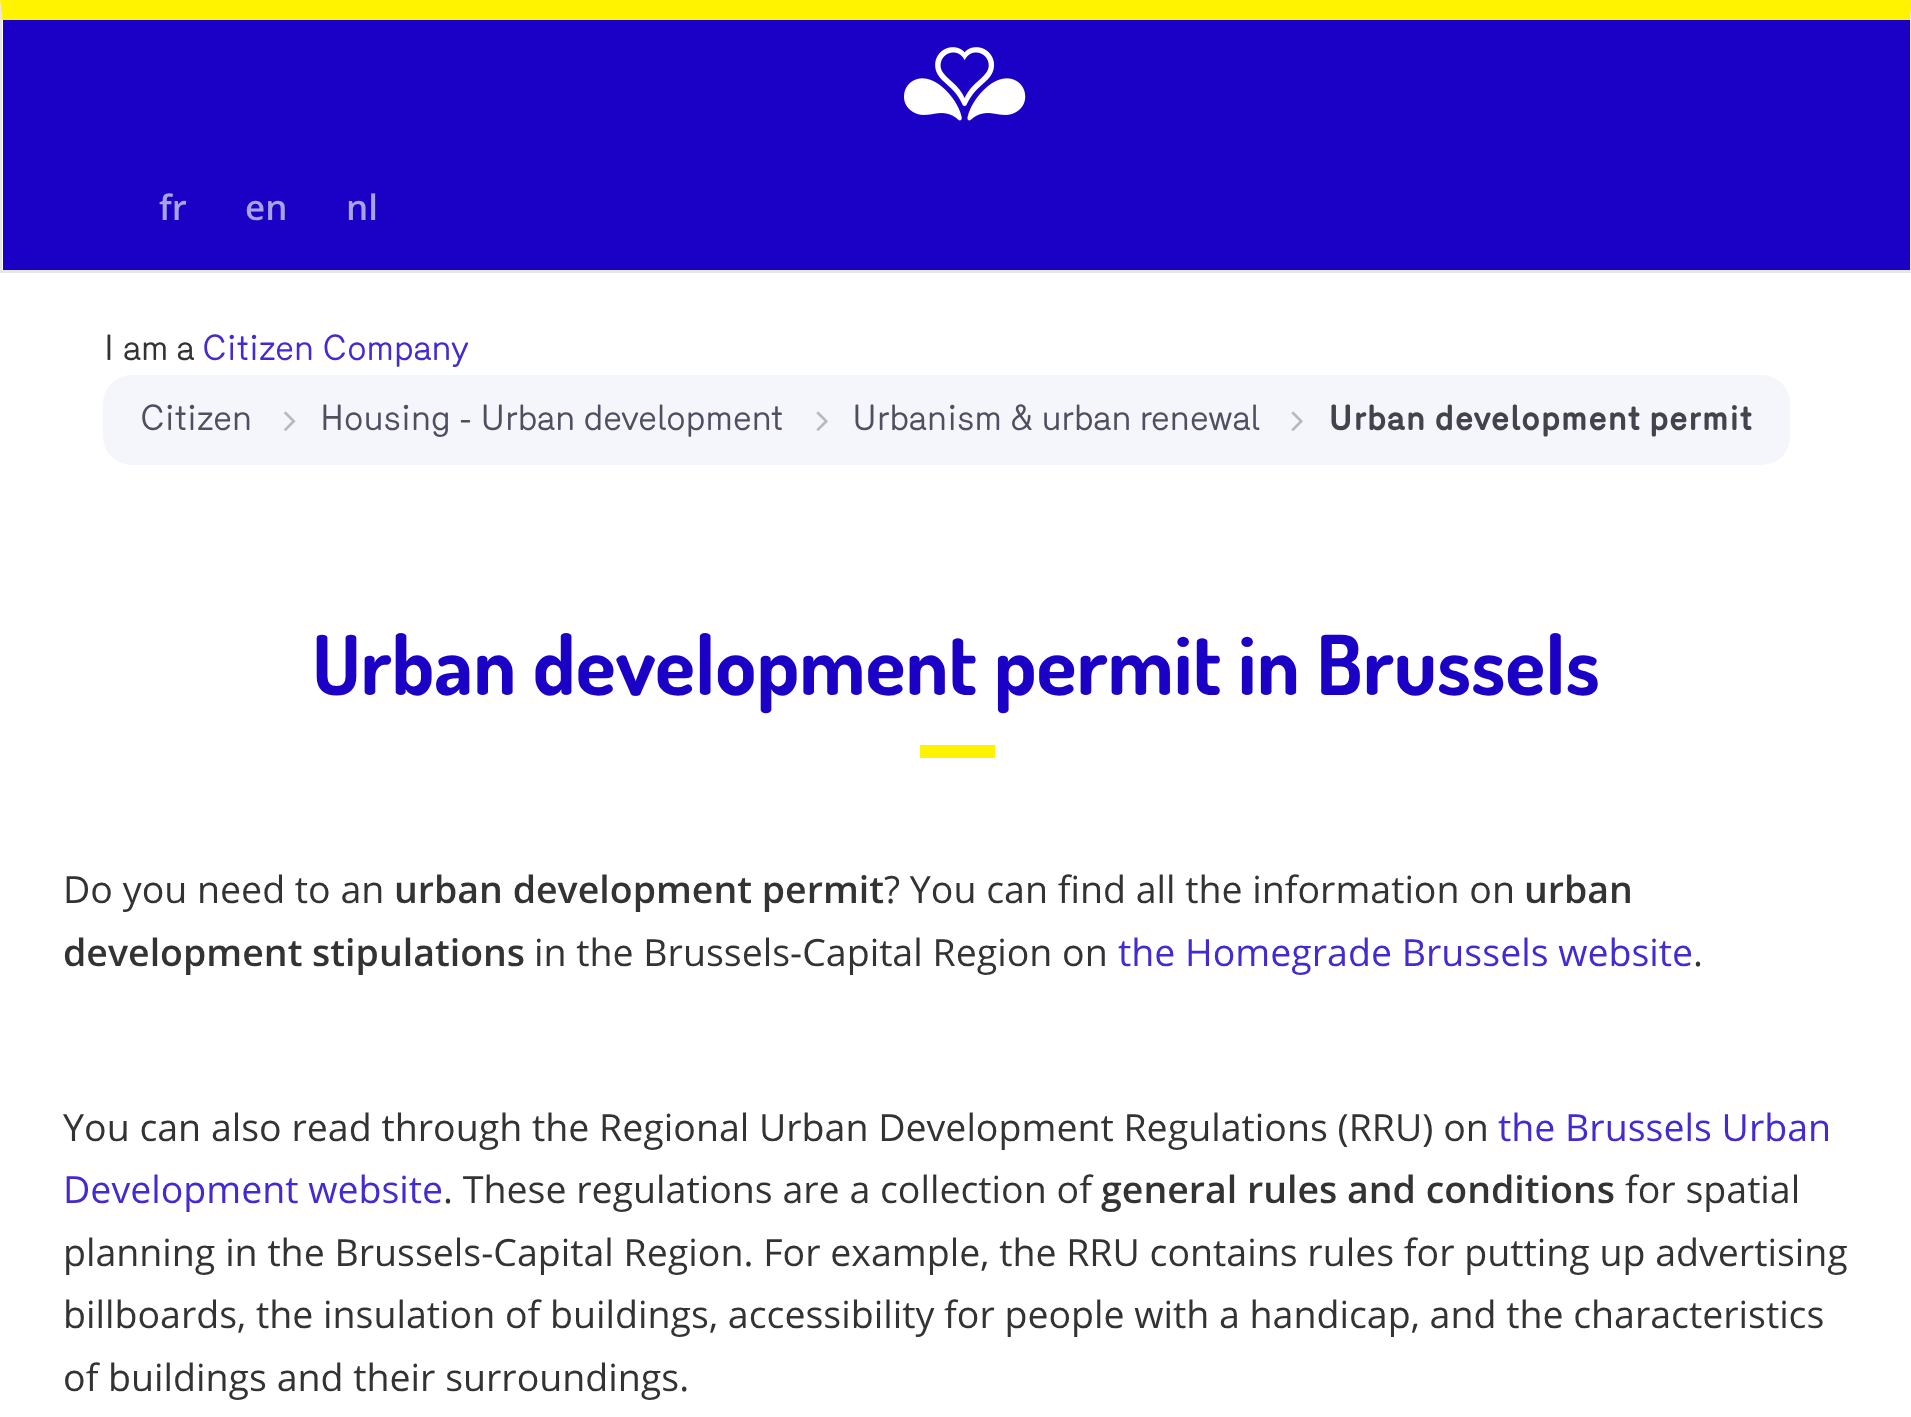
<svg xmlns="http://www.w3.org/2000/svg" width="1911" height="1417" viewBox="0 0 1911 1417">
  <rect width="100%" height="100%" fill="#ffffff"/>
  <rect x="3" y="20" width="1907" height="250" fill="#1b00c6"/>
  <path d="M0 0H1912L1910 20H2Z" fill="#fff300"/>
  <path d="M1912 0V272L1910 270V20Z" fill="#e7e7e7"/>
  <rect x="0" y="270" width="1911" height="3" fill="#e7e7e7"/>
  <path d="M0 272V0L2 20V270Z" fill="#e7e7e7"/>
  <image x="904" y="47" width="122" height="74" href="img1.png"/>
  <text x="159" y="220" font-family="Open Sans" font-size="35" font-weight="600" fill="#a8a3e4">fr</text>
  <text x="245" y="220" font-family="Open Sans" font-size="35" font-weight="600" fill="#a8a3e4">en</text>
  <text x="346" y="220" font-family="Open Sans" font-size="35" font-weight="600" fill="#a8a3e4">nl</text>
  <text x="103" y="360" font-family="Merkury" font-size="35" fill="#333333">I am a</text>
  <text x="202" y="360" font-family="Merkury" font-size="35" fill="#422bd0">Citizen Company</text>
  <rect x="103" y="375" width="1687" height="90" rx="28" fill="#f4f6fb"/>
  <text x="140" y="430" font-family="Merkury" font-size="35" fill="#514e60">Citizen</text>
  <image x="284" y="411" width="12" height="20" href="img2.png"/>
  <text x="320" y="430" font-family="Merkury" font-size="35" fill="#514e60">Housing - Urban development</text>
  <image x="816" y="411" width="12" height="20" href="img3.png"/>
  <text x="852" y="430" font-family="Merkury" font-size="35" fill="#514e60">Urbanism &amp; urban renewal</text>
  <image x="1291" y="411" width="12" height="20" href="img3.png"/>
  <text x="1328" y="430" font-family="Merkury" font-size="35" font-weight="bold" fill="#44424d">Urban development permit</text>
  <text x="312" y="695" font-family="Dosis" font-size="82.5" font-weight="bold" fill="#1b00c6">Urban development permit in Brussels</text>
  <rect x="920" y="745" width="75" height="13" fill="#fff300"/>
  <text x="63" y="903" font-family="Open Sans" font-size="37.5" fill="#333333">Do you need to an</text>
  <text x="394" y="903" font-family="Open Sans" font-size="37.5" font-weight="600" fill="#333333">urban development permit</text>
  <text x="884" y="903" font-family="Open Sans" font-size="37.5" fill="#333333">? You can find all the information on</text>
  <text x="1524" y="903" font-family="Open Sans" font-size="37.5" font-weight="600" fill="#333333">urban</text>
  <text x="63" y="966" font-family="Open Sans" font-size="37.5" font-weight="600" fill="#333333">development stipulations</text>
  <text x="534" y="966" font-family="Open Sans" font-size="37.5" fill="#333333">in the Brussels-Capital Region on</text>
  <text x="1118" y="966" font-family="Open Sans" font-size="37.5" fill="#422bd0">the Homegrade Brussels website</text>
  <text x="1693" y="966" font-family="Open Sans" font-size="37.5" fill="#333333">.</text>
  <text x="63" y="1141" font-family="Open Sans" font-size="37.5" fill="#333333">You can also read through the Regional Urban Development Regulations (RRU) on</text>
  <text x="1498" y="1141" font-family="Open Sans" font-size="37.5" fill="#422bd0">the Brussels Urban</text>
  <text x="63" y="1203" font-family="Open Sans" font-size="37.5" fill="#422bd0">Development website</text>
  <text x="443" y="1203" font-family="Open Sans" font-size="37.5" fill="#333333">. These regulations are a collection of</text>
  <text x="1101" y="1203" font-family="Open Sans" font-size="37.5" font-weight="600" fill="#333333">general rules and conditions</text>
  <text x="1625" y="1203" font-family="Open Sans" font-size="37.5" fill="#333333">for spatial</text>
  <text x="63" y="1266" font-family="Open Sans" font-size="37.5" fill="#333333">planning in the Brussels-Capital Region. For example, the RRU contains rules for putting up advertising</text>
  <text x="63" y="1328" font-family="Open Sans" font-size="37.5" fill="#333333">billboards, the insulation of buildings, accessibility for people with a handicap, and the characteristics</text>
  <text x="63" y="1391" font-family="Open Sans" font-size="37.5" fill="#333333">of buildings and their surroundings.</text>
</svg>
